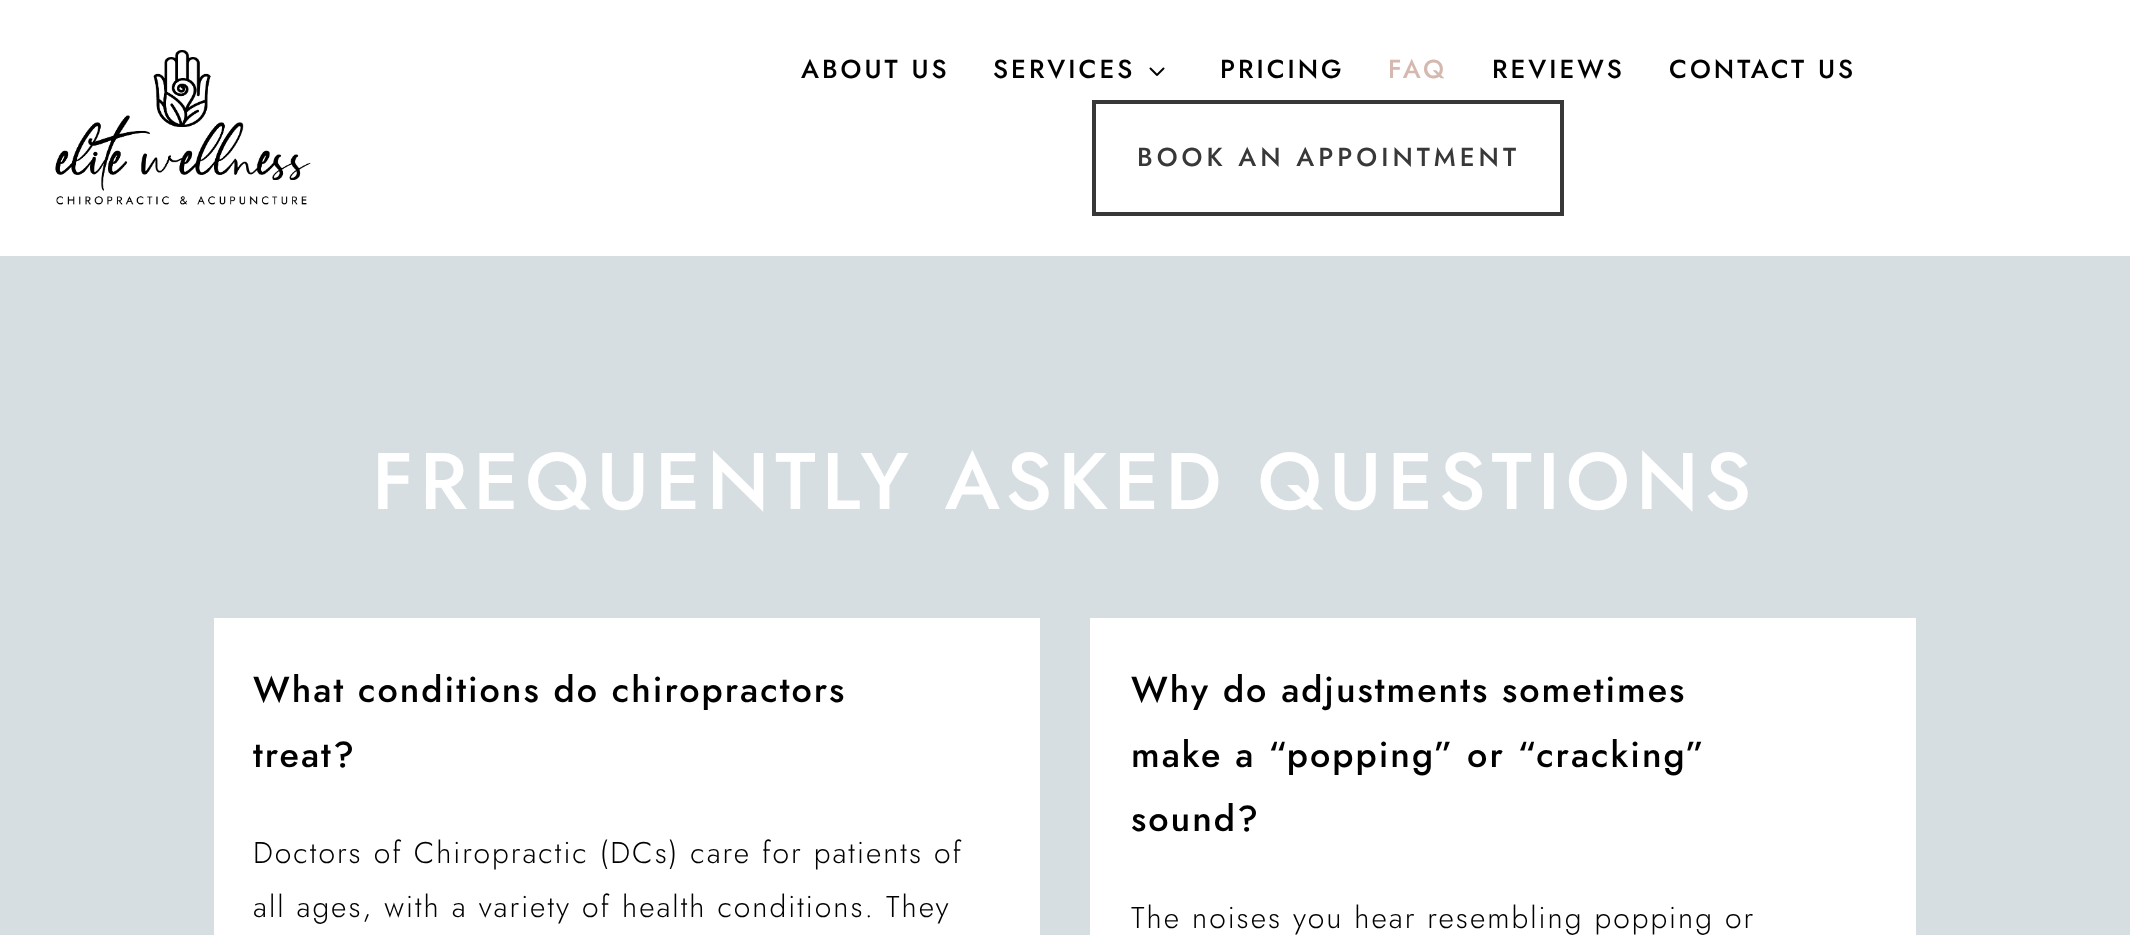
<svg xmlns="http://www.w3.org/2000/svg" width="2130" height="935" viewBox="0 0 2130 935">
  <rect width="100%" height="100%" fill="#d7dee1"/>
  <rect x="0" y="0" width="2130" height="256" fill="#ffffff"/>
  <image x="55" y="50" width="256" height="155" href="img1.png"/>
  <text x="801" y="78" font-family="Jost" font-size="26" font-weight="500" letter-spacing="3" fill="#000000">ABOUT US</text>
  <text x="993" y="78" font-family="Jost" font-size="26" font-weight="500" letter-spacing="3" fill="#000000">SERVICES</text>
  <image x="1149" y="67" width="16" height="9" href="img2.png"/>
  <text x="1220" y="78" font-family="Jost" font-size="26" font-weight="500" letter-spacing="3" fill="#000000">PRICING</text>
  <text x="1388" y="78" font-family="Jost" font-size="26" font-weight="500" letter-spacing="3" fill="#d5b9b1">FAQ</text>
  <text x="1492" y="78" font-family="Jost" font-size="26" font-weight="500" letter-spacing="3" fill="#000000">REVIEWS</text>
  <text x="1669" y="78" font-family="Jost" font-size="26" font-weight="500" letter-spacing="3" fill="#000000">CONTACT US</text>
  <rect x="1094" y="102" width="468" height="112" fill="none" stroke="#383838" stroke-width="4"/>
  <text x="1137" y="166" font-family="Jost" font-size="26" font-weight="500" letter-spacing="4" fill="#383838">BOOK AN APPOINTMENT</text>
  <text x="372" y="509" font-family="Jost" font-size="80" font-weight="500" letter-spacing="6" fill="#ffffff">FREQUENTLY ASKED QUESTIONS</text>
  <rect x="214" y="618" width="826" height="317" fill="#ffffff"/>
  <text x="253" y="702" font-family="Jost" font-size="36" font-weight="500" letter-spacing="2" fill="#000000">What conditions do chiropractors</text>
  <text x="253" y="767" font-family="Jost" font-size="36" font-weight="500" letter-spacing="2" fill="#000000">treat?</text>
  <text x="253" y="863" font-family="Jost" font-size="30" font-weight="300" letter-spacing="2" fill="#000000">Doctors of Chiropractic (DCs) care for patients of</text>
  <text x="253" y="917" font-family="Jost" font-size="30" font-weight="300" letter-spacing="2" fill="#000000">all ages, with a variety of health conditions. They</text>
  <rect x="1090" y="618" width="826" height="317" fill="#ffffff"/>
  <text x="1131" y="702" font-family="Jost" font-size="36" font-weight="500" letter-spacing="2" fill="#000000">Why do adjustments sometimes</text>
  <text x="1131" y="767" font-family="Jost" font-size="36" font-weight="500" letter-spacing="2" fill="#000000">make a “popping” or “cracking”</text>
  <text x="1131" y="831" font-family="Jost" font-size="36" font-weight="500" letter-spacing="2" fill="#000000">sound?</text>
  <text x="1131" y="928" font-family="Jost" font-size="30" font-weight="300" letter-spacing="2" fill="#000000">The noises you hear resembling popping or</text>
</svg>
